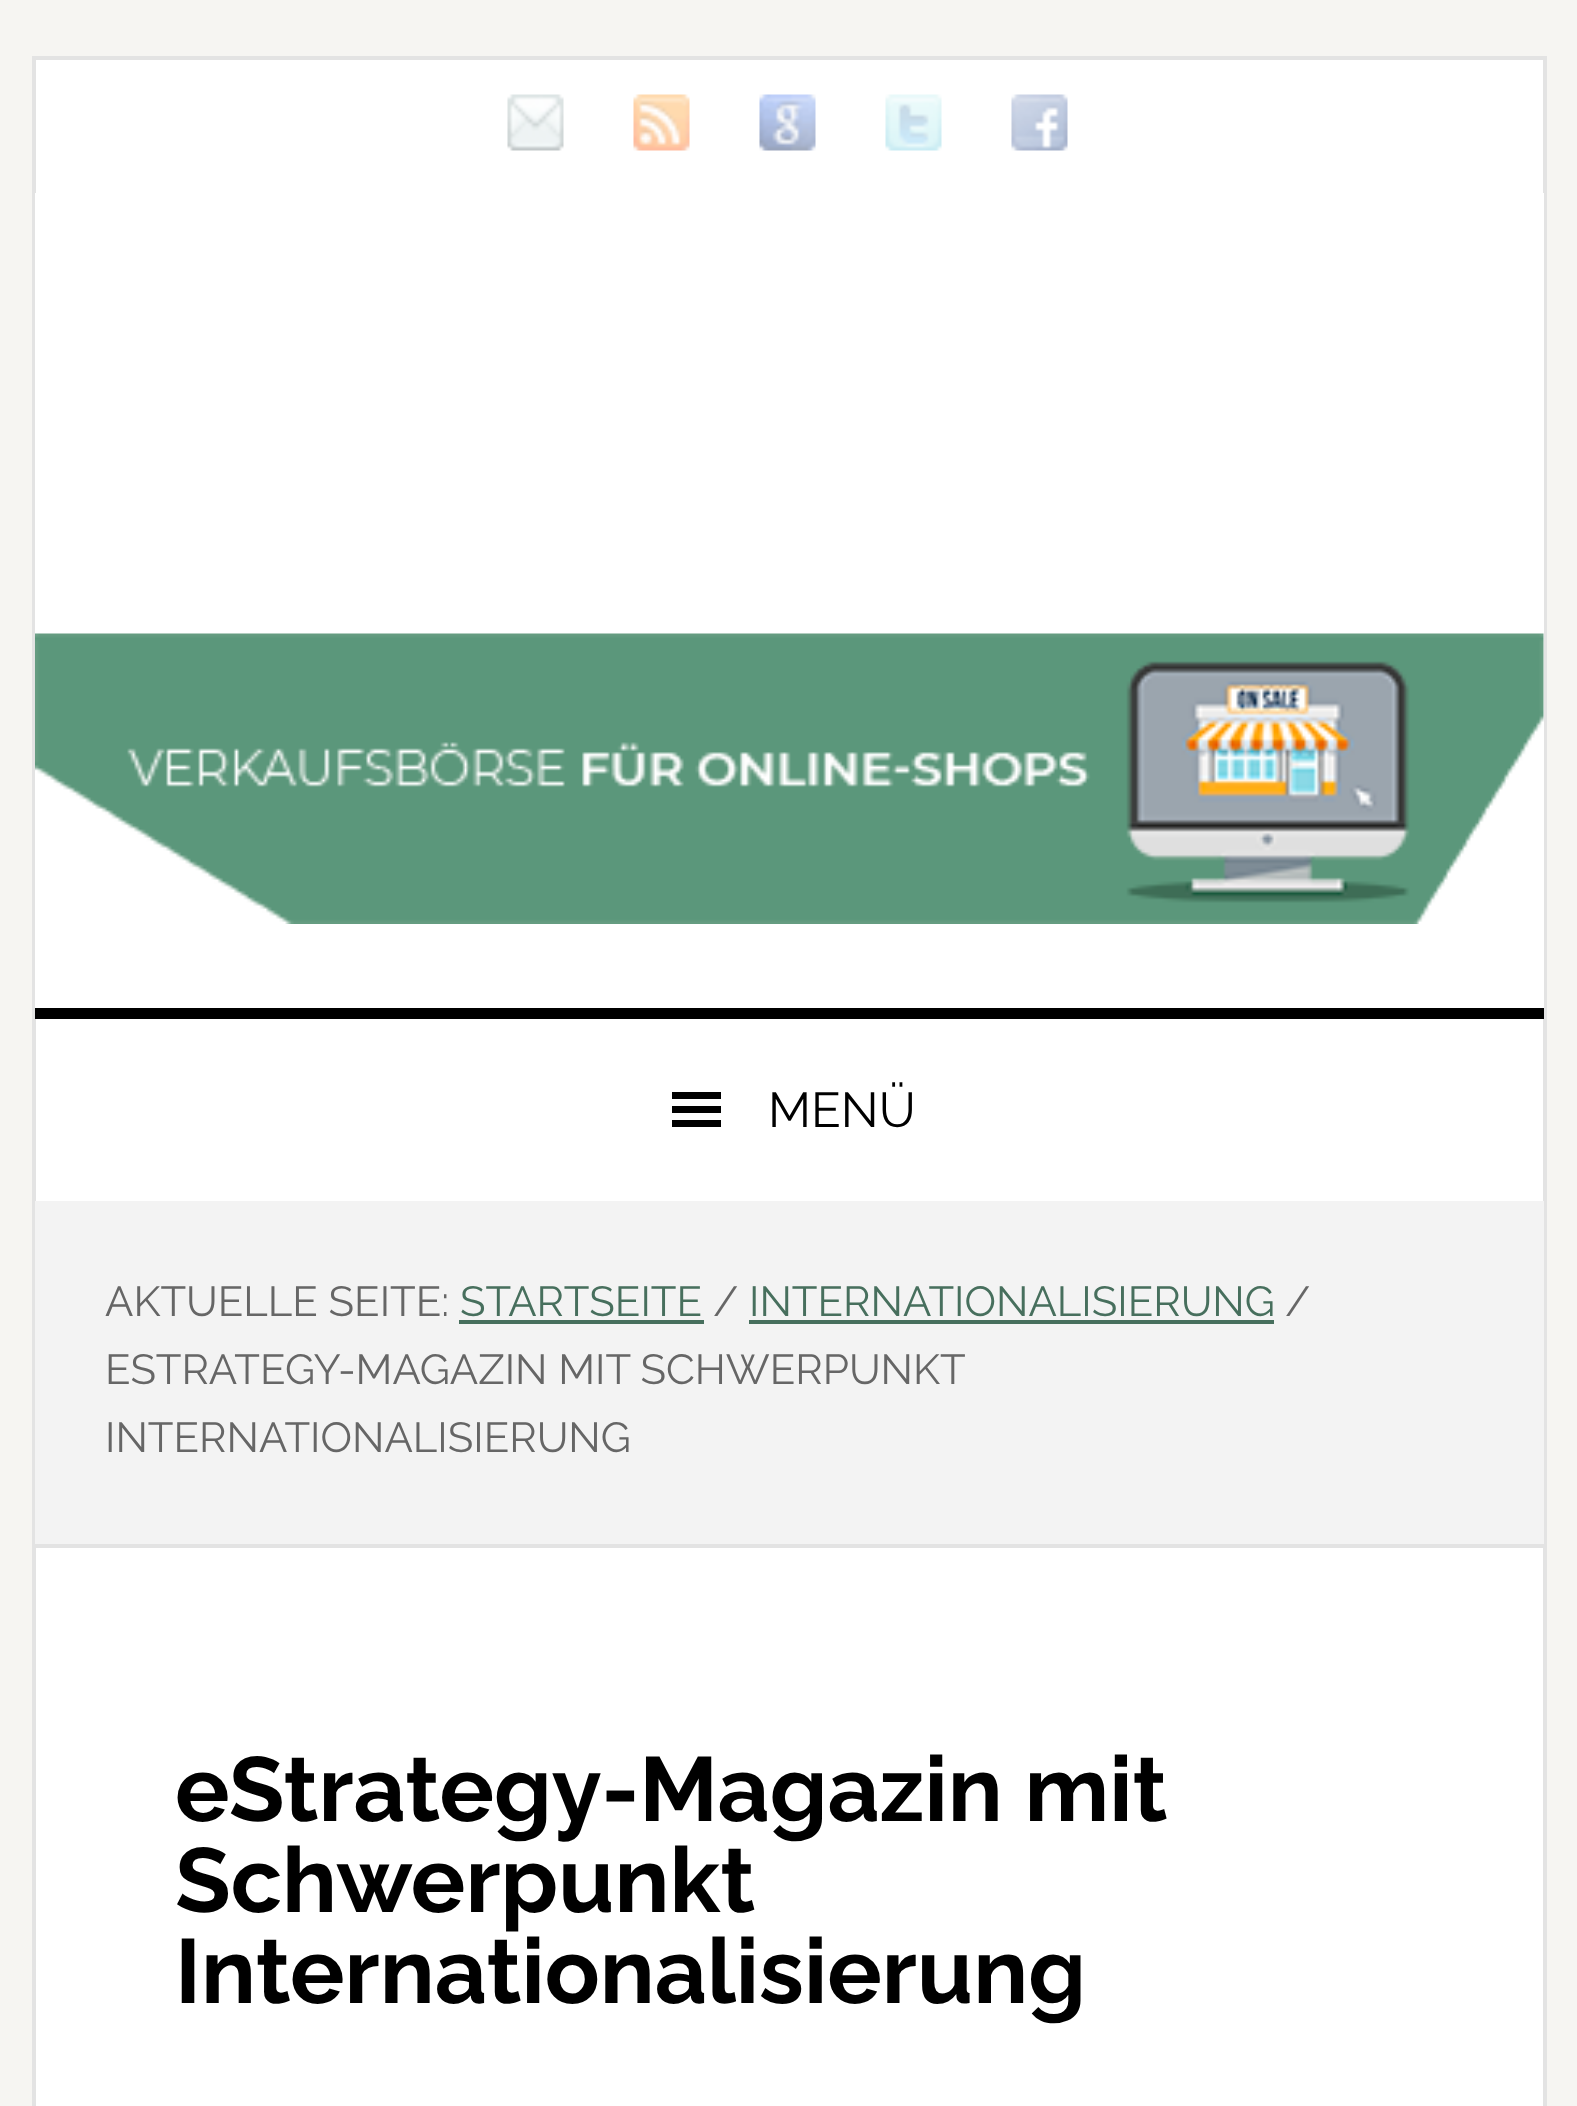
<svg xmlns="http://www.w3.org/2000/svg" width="1577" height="2106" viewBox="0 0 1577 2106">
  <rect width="100%" height="100%" fill="#f6f5f2"/>
  <rect x="34" y="58" width="1511" height="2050" fill="#ffffff" stroke="#e3e3e3" stroke-width="4"/>
  <image x="507" y="94" width="57" height="57" href="img1.png"/>
  <image x="633" y="94" width="57" height="57" href="img2.png"/>
  <image x="759" y="94" width="57" height="57" href="img3.png"/>
  <image x="885" y="94" width="57" height="57" href="img4.png"/>
  <image x="1011" y="94" width="57" height="57" href="img5.png"/>
  <rect x="35" y="193" width="1509" height="815" fill="#ffffff"/>
  <rect x="35" y="1008" width="1509" height="11" fill="#000000"/>
  <image x="35" y="633" width="1509" height="291" href="img6.png"/>
  <path d="M672 1127H721V1120H672ZM672 1092V1099H721V1092ZM672 1113H721V1106H672Z" fill="#000000"/>
  <text x="768" y="1127" font-family="Raleway" font-size="49" fill="#000000">MENÜ</text>
  <rect x="35" y="1201" width="1509" height="343" fill="#f3f3f3"/>
  <rect x="35" y="1544" width="1509" height="4" fill="#e3e3e3"/>
  <text x="105" y="1316" font-family="Raleway" font-size="42" fill="#666666">AKTUELLE SEITE:</text>
  <text x="460" y="1316" font-family="Raleway" font-size="42" fill="#476f5d">STARTSEITE</text>
  <rect x="459" y="1320" width="245" height="4" fill="#476f5d"/>
  <text x="713" y="1316" font-family="Raleway" font-size="42" fill="#666666">/</text>
  <text x="749" y="1316" font-family="Raleway" font-size="42" fill="#476f5d">INTERNATIONALISIERUNG</text>
  <rect x="749" y="1320" width="525" height="4" fill="#476f5d"/>
  <text x="1285" y="1316" font-family="Raleway" font-size="42" fill="#666666">/</text>
  <text x="105" y="1384" font-family="Raleway" font-size="42" fill="#666666">ESTRATEGY-MAGAZIN MIT SCHWERPUNKT</text>
  <text x="105" y="1452" font-family="Raleway" font-size="42" fill="#666666">INTERNATIONALISIERUNG</text>
  <text x="175" y="1821" font-family="Raleway" font-size="91" font-weight="bold" fill="#000000">eStrategy-Magazin mit</text>
  <text x="175" y="1912" font-family="Raleway" font-size="91" font-weight="bold" fill="#000000">Schwerpunkt</text>
  <text x="175" y="2003" font-family="Raleway" font-size="91" font-weight="bold" fill="#000000">Internationalisierung</text>
</svg>
